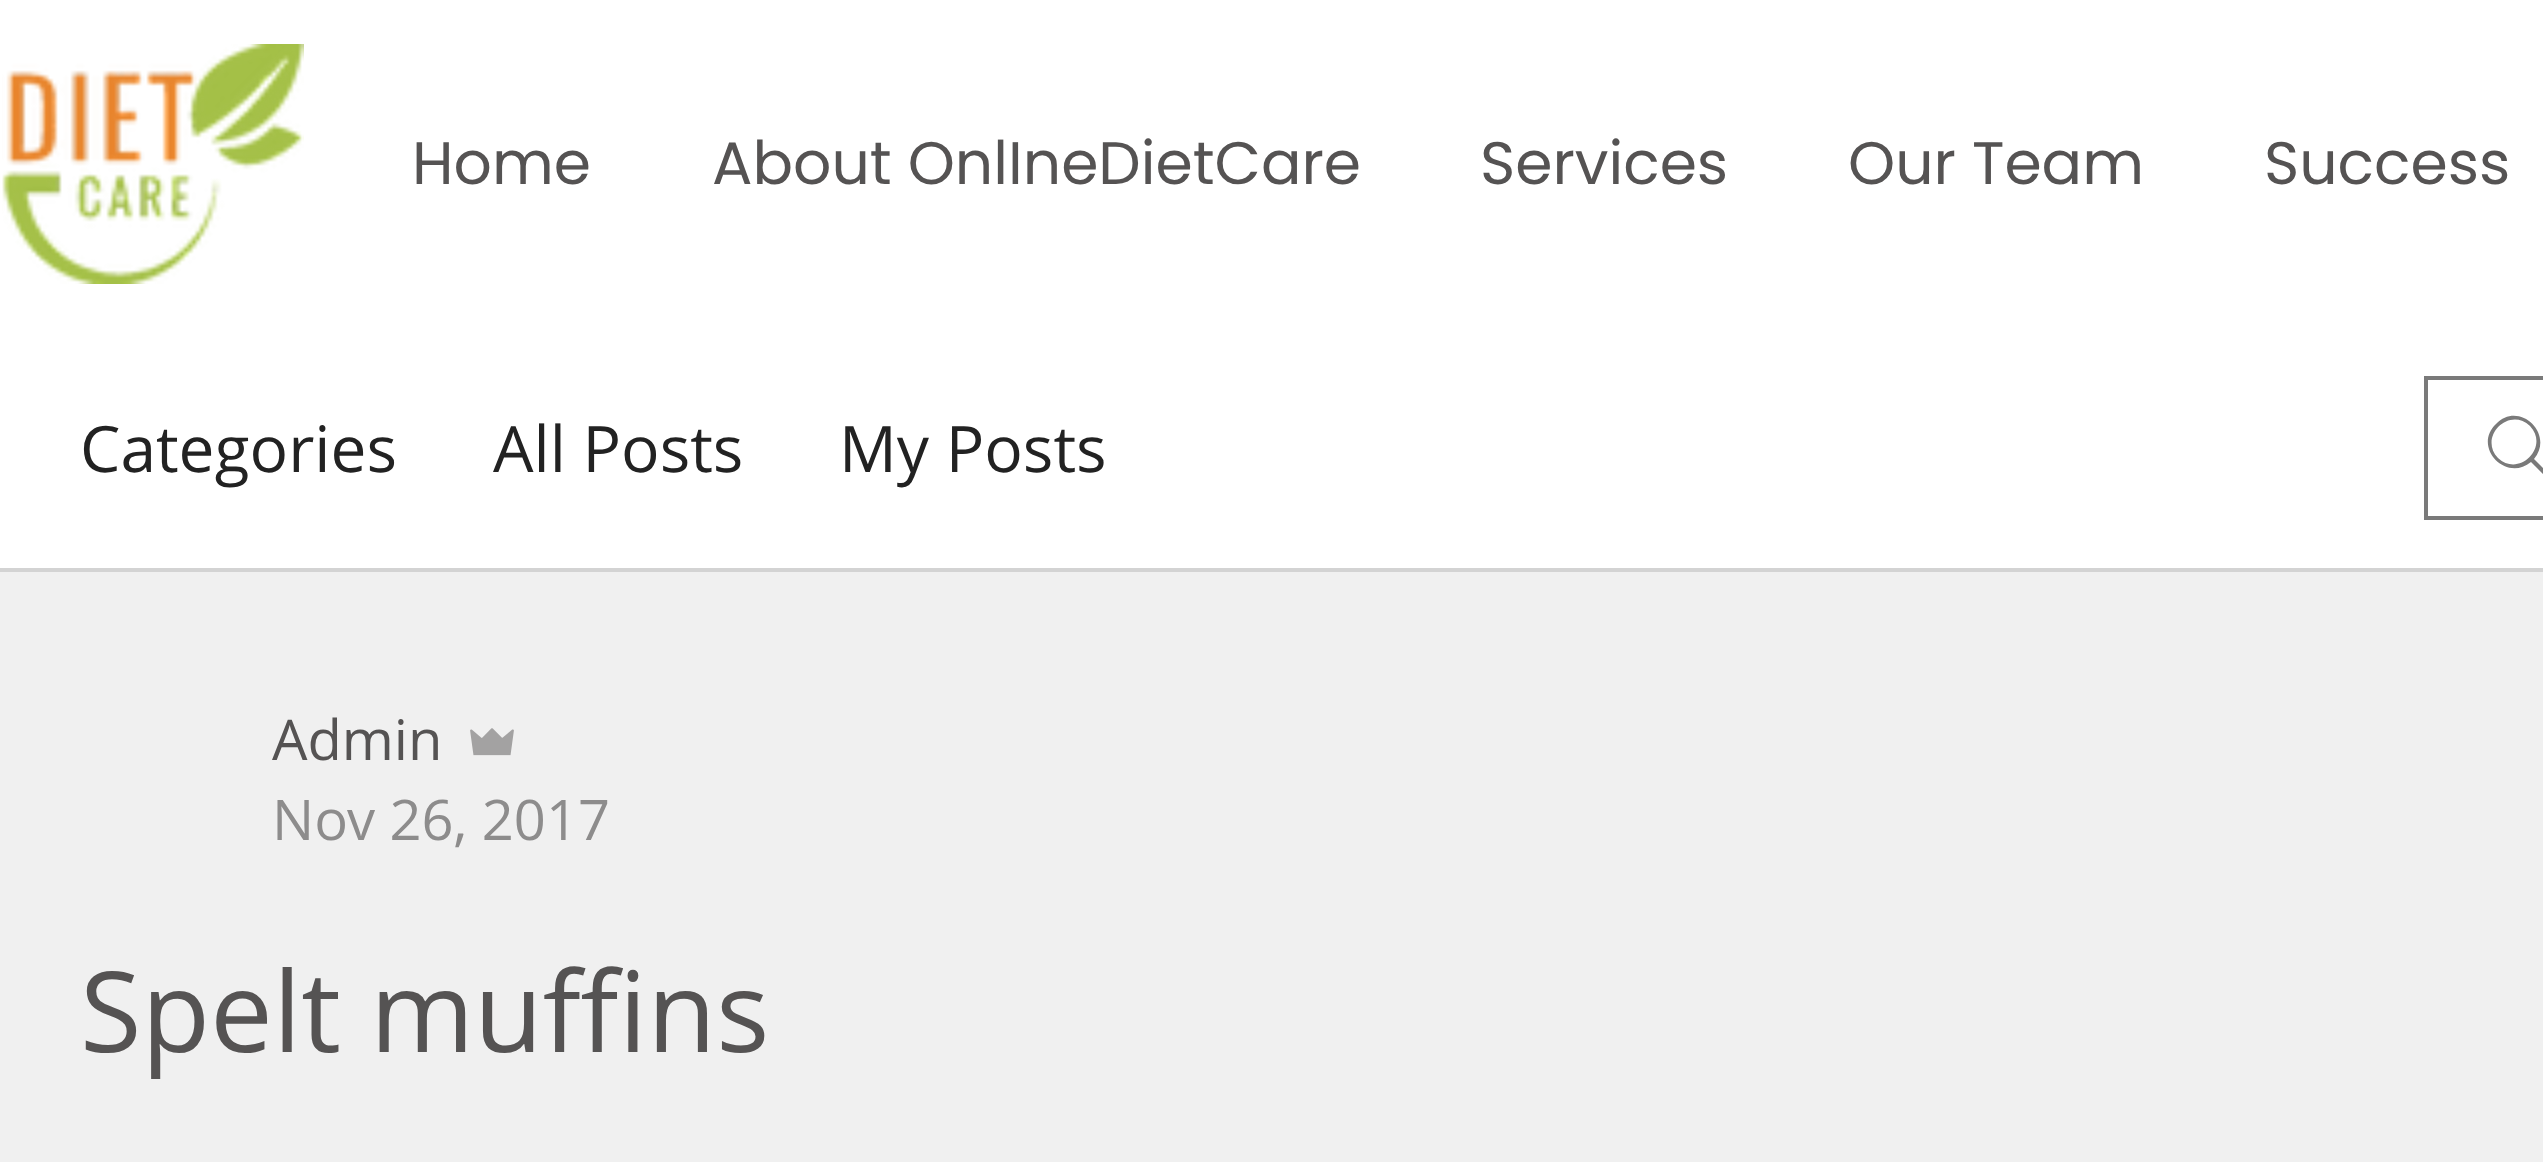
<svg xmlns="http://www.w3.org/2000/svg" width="2543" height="1162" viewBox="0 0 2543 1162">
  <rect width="100%" height="100%" fill="#ffffff"/>
  <image x="2" y="44" width="302" height="240" href="img1.png"/>
  <text x="412" y="184" font-family="Poppins" font-size="60" fill="#555353">Home</text>
  <text x="712" y="184" font-family="Poppins" font-size="60" fill="#555353">About OnlIneDietCare</text>
  <text x="1480" y="184" font-family="Poppins" font-size="60" fill="#555353">Services</text>
  <text x="1848" y="184" font-family="Poppins" font-size="60" fill="#555353">Our Team</text>
  <text x="2264" y="184" font-family="Poppins" font-size="60" fill="#555353">Success</text>
  <rect x="0" y="568" width="2543" height="4" fill="#d3d3d3"/>
  <text x="80" y="472" font-family="Open Sans" font-size="64" fill="#222222">Categories</text>
  <text x="493" y="472" font-family="Open Sans" font-size="64" fill="#222222">All Posts</text>
  <text x="839" y="472" font-family="Open Sans" font-size="64" fill="#222222">My Posts</text>
  <path d="M2498 458C2478 437 2509 406 2530 426C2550 447 2519 478 2498 458ZM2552 477L2534 459C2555 434 2519 400 2496 424C2472 447 2506 483 2531 462L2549 480Z" fill="#7a7a7a" fill-rule="evenodd"/>
  <rect x="2426" y="378" width="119" height="140" fill="none" stroke="#7a7a7a" stroke-width="4"/>
  <rect x="0" y="572" width="2543" height="590" fill="#f0f0f0"/>
  <text x="272" y="760" font-family="Open Sans" font-size="56" fill="#555353">Admin</text>
  <image x="470" y="728" width="44" height="28" href="img2.png"/>
  <text x="272" y="840" font-family="Open Sans" font-size="56" fill="#8d8c8c">Nov 26, 2017</text>
  <text x="80" y="1052" font-family="Open Sans" font-size="112" fill="#555353">Spelt muffins</text>
</svg>
